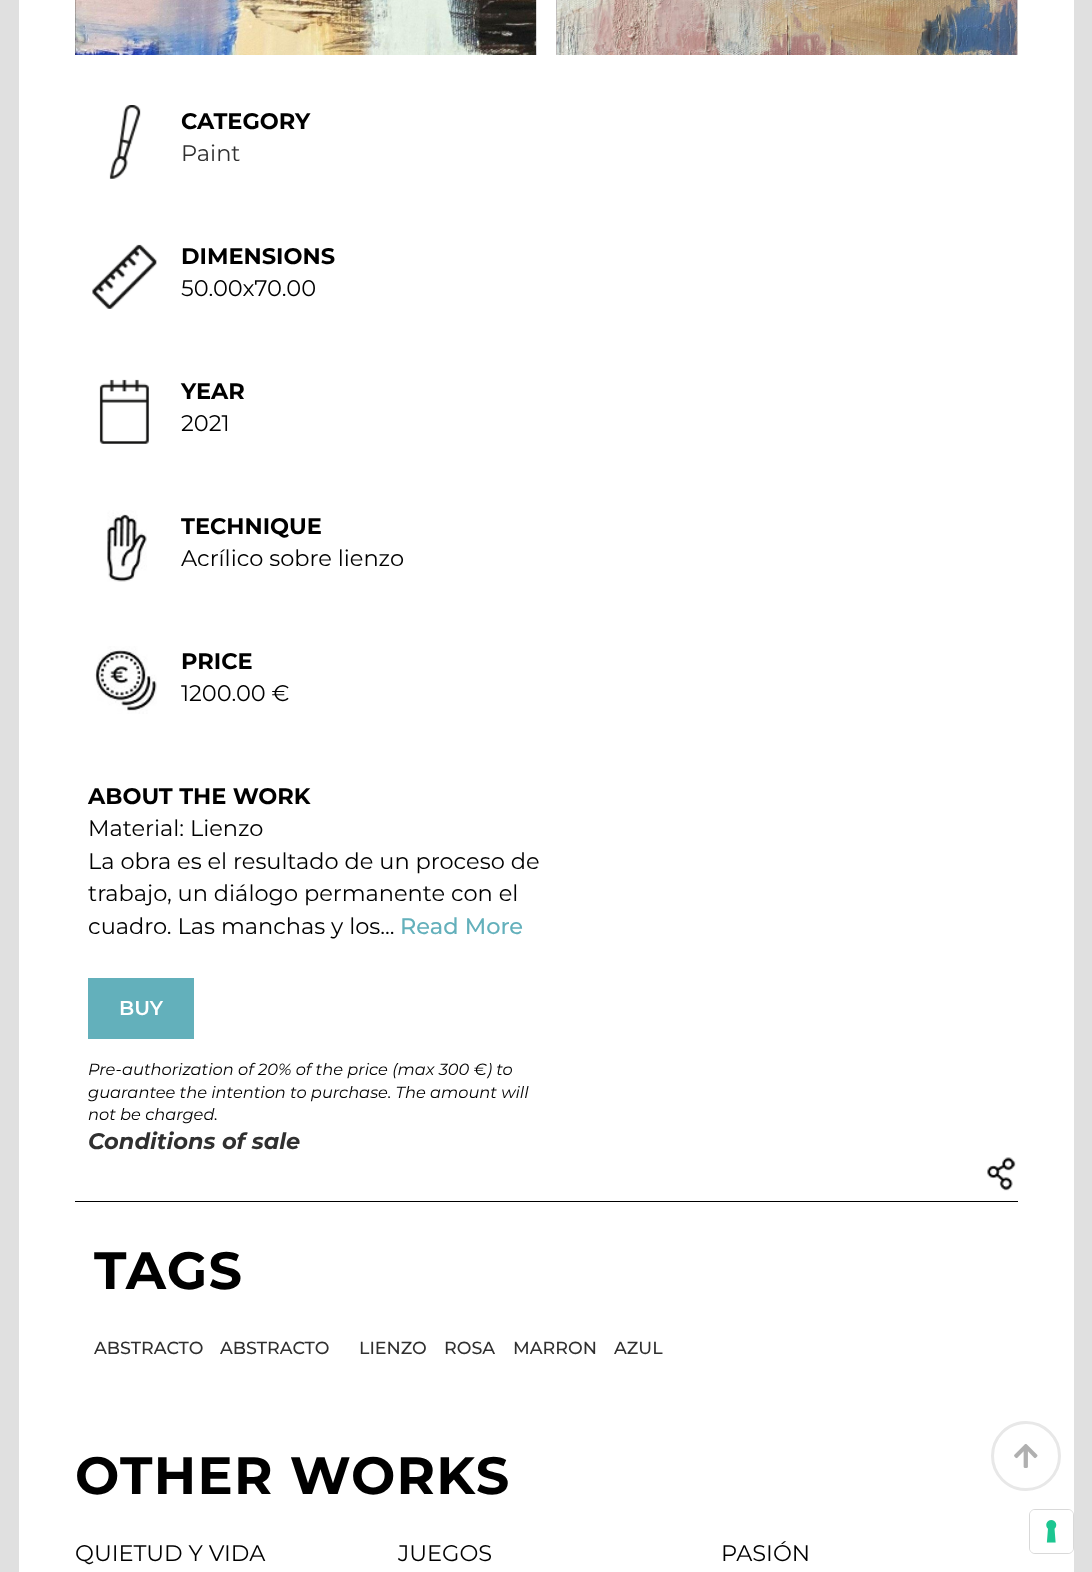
<svg xmlns="http://www.w3.org/2000/svg" width="1092" height="1572" viewBox="0 0 1092 1572">
  <rect width="100%" height="100%" fill="#e0e0e0"/>
  <rect x="19" y="0" width="1055" height="1572" fill="#ffffff"/>
  <image x="75" y="0" width="462" height="55" href="img1.png"/>
  <image x="556" y="0" width="462" height="55" href="img2.png"/>
  <image x="109" y="105" width="32" height="74" href="img3.png"/>
  <text x="181" y="129" font-family="Montserrat" font-size="22.5" font-weight="bold" fill="#000000">CATEGORY</text>
  <text x="181" y="161" font-family="Montserrat" font-size="22.5" fill="#303030">Paint</text>
  <image x="92" y="244" width="65" height="65" href="img4.png"/>
  <text x="181" y="264" font-family="Montserrat" font-size="22.5" font-weight="bold" fill="#000000">DIMENSIONS</text>
  <text x="181" y="296" font-family="Montserrat" font-size="22.5" fill="#000000">50.00x70.00</text>
  <image x="99" y="379" width="50" height="65" href="img5.png"/>
  <text x="181" y="399" font-family="Montserrat" font-size="22.5" font-weight="bold" fill="#000000">YEAR</text>
  <text x="181" y="431" font-family="Montserrat" font-size="22.5" fill="#000000">2021</text>
  <image x="107" y="510" width="40" height="72" href="img6.png"/>
  <text x="181" y="534" font-family="Montserrat" font-size="22.5" font-weight="bold" fill="#000000">TECHNIQUE</text>
  <text x="181" y="566" font-family="Montserrat" font-size="22.5" fill="#000000">Acrílico sobre lienzo</text>
  <image x="94" y="646" width="63" height="68" href="img7.png"/>
  <text x="181" y="669" font-family="Montserrat" font-size="22.5" font-weight="bold" fill="#000000">PRICE</text>
  <text x="181" y="701" font-family="Montserrat" font-size="22.5" fill="#000000">1200.00 €</text>
  <text x="88" y="804" font-family="Montserrat" font-size="22.5" font-weight="bold" fill="#000000">ABOUT THE WORK</text>
  <text x="88" y="836" font-family="Montserrat" font-size="22.5" fill="#000000">Material: Lienzo</text>
  <text x="88" y="869" font-family="Montserrat" font-size="22.5" fill="#000000">La obra es el resultado de un proceso de</text>
  <text x="88" y="901" font-family="Montserrat" font-size="22.5" fill="#000000">trabajo, un diálogo permanente con el</text>
  <text x="88" y="934" font-family="Montserrat" font-size="22.5" fill="#000000">cuadro. Las manchas y los...</text>
  <text x="400" y="934" font-family="Montserrat" font-size="22.5" font-weight="500" fill="#63b0bb">Read More</text>
  <rect x="88" y="978" width="106" height="61" fill="#63b0bb"/>
  <text x="119" y="1015" font-family="Montserrat" font-size="20" font-weight="600" fill="#ffffff">BUY</text>
  <text x="88" y="1075" font-family="Montserrat" font-size="16.25" font-style="italic" fill="#000000">Pre-authorization of 20% of the price (max 300 €) to</text>
  <text x="88" y="1098" font-family="Montserrat" font-size="16.25" font-style="italic" fill="#000000">guarantee the intention to purchase. The amount will</text>
  <text x="88" y="1120" font-family="Montserrat" font-size="16.25" font-style="italic" fill="#000000">not be charged.</text>
  <text x="88" y="1149" font-family="Montserrat" font-size="22.5" font-weight="bold" font-style="italic" fill="#303030">Conditions of sale</text>
  <image x="987" y="1157" width="29" height="34" href="img8.png"/>
  <rect x="75" y="1201" width="943" height="1" fill="#000000"/>
  <text x="94" y="1289" font-family="Montserrat" font-size="52.5" font-weight="bold" letter-spacing="1.25" fill="#000000">TAGS</text>
  <text x="94" y="1354" font-family="Montserrat" font-size="17.5" font-weight="500" fill="#303030">ABSTRACTO</text>
  <text x="220" y="1354" font-family="Montserrat" font-size="17.5" font-weight="500" fill="#303030">ABSTRACTO</text>
  <text x="359" y="1354" font-family="Montserrat" font-size="17.5" font-weight="500" fill="#303030">LIENZO</text>
  <text x="444" y="1354" font-family="Montserrat" font-size="17.5" font-weight="500" fill="#303030">ROSA</text>
  <text x="513" y="1354" font-family="Montserrat" font-size="17.5" font-weight="500" fill="#303030">MARRON</text>
  <text x="614" y="1354" font-family="Montserrat" font-size="17.5" font-weight="500" fill="#303030">AZUL</text>
  <text x="75" y="1494" font-family="Montserrat" font-size="52.5" font-weight="bold" letter-spacing="1.25" fill="#000000">OTHER WORKS</text>
  <text x="75" y="1561" font-family="Montserrat" font-size="22.5" fill="#000000">QUIETUD Y VIDA</text>
  <text x="398" y="1561" font-family="Montserrat" font-size="22.5" fill="#000000">JUEGOS</text>
  <text x="721" y="1561" font-family="Montserrat" font-size="22.5" fill="#000000">PASIÓN</text>
  <circle cx="1026" cy="1456" r="33.5" fill="none" stroke="#e8e8e8" stroke-width="3"/>
  <image x="1014" y="1444" width="24" height="24" href="img9.png"/>
  <rect x="1029.5" y="1509.5" width="44" height="44" rx="5.5" fill="none" stroke="#d9d9d9"/>
  <rect x="1030" y="1510" width="43" height="43" rx="5" fill="#ffffff"/>
  <image x="1046" y="1520" width="11" height="23" href="img10.png"/>
</svg>
